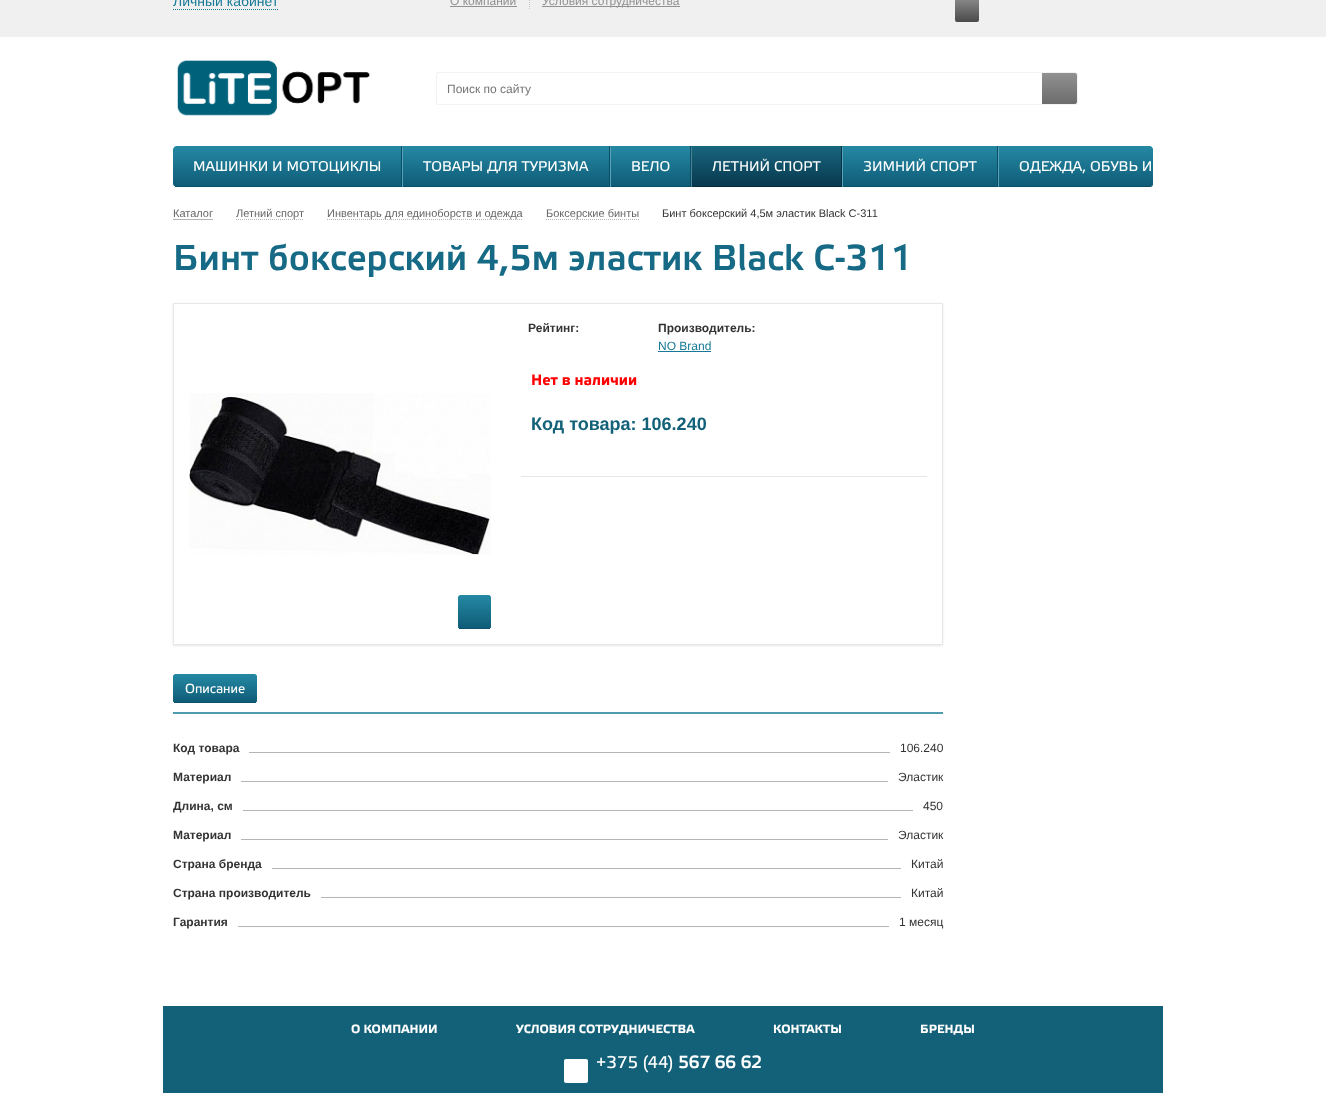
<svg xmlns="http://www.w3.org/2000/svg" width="1326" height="1099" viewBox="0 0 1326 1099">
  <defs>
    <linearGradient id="g1" gradientUnits="userSpaceOnUse" x1="967" y1="-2" x2="967" y2="22"><stop offset="0" stop-color="#8b8b8b"/><stop offset="1" stop-color="#4a4a4a"/></linearGradient>
    <filter id="blur1" x="-50%" y="-200%" width="200%" height="500%"><feGaussianBlur stdDeviation="0.5"/></filter>
    <linearGradient id="g2" gradientUnits="userSpaceOnUse" x1="1060" y1="73" x2="1060" y2="104"><stop offset="0" stop-color="#919191"/><stop offset="1" stop-color="#6c6c6c"/></linearGradient>
    <clipPath id="clip1"><rect x="173" y="146" width="980" height="41" rx="3"/></clipPath>
    <clipPath id="clip2"><path d="M176 146H402V187H176C174.5 187 173 185.5 173 184V149C173 147.5 174.5 146 176 146Z"/></clipPath>
    <linearGradient id="g3" gradientUnits="userSpaceOnUse" x1="287" y1="146" x2="287" y2="186"><stop offset="0" stop-color="#2589a4"/><stop offset="1" stop-color="#0f5c77"/></linearGradient>
    <linearGradient id="g4" gradientUnits="userSpaceOnUse" x1="506" y1="146" x2="506" y2="186"><stop offset="0" stop-color="#2589a4"/><stop offset="1" stop-color="#0f5c77"/></linearGradient>
    <linearGradient id="g5" gradientUnits="userSpaceOnUse" x1="650" y1="146" x2="650" y2="186"><stop offset="0" stop-color="#2589a4"/><stop offset="1" stop-color="#0f5c77"/></linearGradient>
    <linearGradient id="g6" gradientUnits="userSpaceOnUse" x1="766" y1="146" x2="766" y2="186"><stop offset="0" stop-color="#18667e"/><stop offset="1" stop-color="#08394f"/></linearGradient>
    <linearGradient id="g7" gradientUnits="userSpaceOnUse" x1="920" y1="146" x2="920" y2="186"><stop offset="0" stop-color="#2589a4"/><stop offset="1" stop-color="#0f5c77"/></linearGradient>
    <linearGradient id="g8" gradientUnits="userSpaceOnUse" x1="1133" y1="146" x2="1133" y2="186"><stop offset="0" stop-color="#2589a4"/><stop offset="1" stop-color="#0f5c77"/></linearGradient>
    <clipPath id="clip3"><path d="M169 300H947V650H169ZM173 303H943V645H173Z" clip-rule="evenodd"/></clipPath>
    <filter id="blur2" x="-50%" y="-200%" width="200%" height="500%"><feGaussianBlur stdDeviation="1"/></filter>
    <clipPath id="clip4"><rect x="458" y="595" width="33" height="34" rx="2"/></clipPath>
    <linearGradient id="g9" gradientUnits="userSpaceOnUse" x1="475" y1="595" x2="475" y2="628"><stop offset="0" stop-color="#2589a4"/><stop offset="1" stop-color="#0f5c77"/></linearGradient>
    <clipPath id="clip5"><rect x="173" y="674" width="84" height="29" rx="2"/></clipPath>
    <linearGradient id="g10" gradientUnits="userSpaceOnUse" x1="215" y1="674" x2="215" y2="702"><stop offset="0" stop-color="#2589a4"/><stop offset="1" stop-color="#0f5c77"/></linearGradient>
  </defs>
  <rect width="100%" height="100%" fill="#ffffff"/>
  <rect x="0" y="0" width="1326" height="37" fill="#f0f0f0"/>
  <text x="173" y="6" font-family="Liberation Sans" font-size="14" fill="#177997">Личный кабинет</text>
  <path d="M173 9.5H278" fill="none" stroke="#177997" stroke-dasharray="1 1"/>
  <text x="450" y="5" font-family="Liberation Sans" font-size="12" fill="#919191">О компании</text>
  <rect x="450" y="6" width="67" height="1" fill="#919191"/>
  <path d="M529.5-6V9" fill="none" stroke="#c8c8c8" stroke-dasharray="1 1"/>
  <rect x="542" y="6" width="138" height="1" fill="#919191"/>
  <text x="542" y="5" font-family="Liberation Sans" font-size="12" fill="#919191">Условия сотрудничества</text>
  <rect x="955" y="-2" width="24" height="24" rx="2" fill="url(#g1)"/>
  <image x="177" y="60" width="193" height="56" href="img1.png"/>
  <rect x="436" y="72" width="642" height="33" rx="3" fill="#ededed" filter="url(#blur1)"/>
  <rect x="436.5" y="72.5" width="641" height="32" rx="2.5" fill="#ffffff" stroke="#f2f3f4"/>
  <text x="447" y="93" font-family="Liberation Sans" font-size="12" fill="#757575">Поиск по сайту</text>
  <path d="M1042 73H1075C1076 73 1077 74 1077 75V102C1077 103 1076 104 1075 104H1042Z" fill="url(#g2)"/>
  <g clip-path="url(#clip1)">
    <g clip-path="url(#clip2)">
      <path d="M176 146H402V186H173V149C173 147.5 174.5 146 176 146Z" fill="url(#g3)"/>
    </g>
  </g>
  <rect x="401" y="146" width="1" height="41" fill="#0c4d66"/>
  <rect x="175" y="186" width="227" height="1" fill="#0c4d66"/>
  <text x="193" y="171" font-family="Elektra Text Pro" font-size="14" fill="#ffffff">МАШИНКИ И МОТОЦИКЛЫ</text>
  <rect x="402" y="146" width="207" height="40" fill="url(#g4)"/>
  <rect x="609" y="146" width="1" height="41" fill="#0c4d66"/>
  <rect x="402" y="186" width="208" height="1" fill="#0c4d66"/>
  <rect x="402" y="147" width="1" height="40" fill="#56a4ba"/>
  <text x="423" y="171" font-family="Elektra Text Pro" font-size="14" fill="#ffffff">ТОВАРЫ ДЛЯ ТУРИЗМА</text>
  <rect x="610" y="146" width="80" height="40" fill="url(#g5)"/>
  <rect x="690" y="146" width="1" height="41" fill="#0c4d66"/>
  <rect x="610" y="186" width="81" height="1" fill="#0c4d66"/>
  <rect x="610" y="147" width="1" height="40" fill="#56a4ba"/>
  <text x="631" y="171" font-family="Elektra Text Pro" font-size="14" fill="#ffffff">ВЕЛО</text>
  <rect x="691" y="146" width="150" height="40" fill="url(#g6)"/>
  <rect x="841" y="146" width="1" height="41" fill="#063044"/>
  <rect x="691" y="186" width="151" height="1" fill="#062d3e"/>
  <rect x="691" y="147" width="1" height="40" fill="#4b8497"/>
  <text x="712" y="171" font-family="Elektra Text Pro" font-size="14" fill="#ffffff">ЛЕТНИЙ СПОРТ</text>
  <rect x="842" y="146" width="155" height="40" fill="url(#g7)"/>
  <rect x="997" y="146" width="1" height="41" fill="#0c4d66"/>
  <rect x="842" y="186" width="156" height="1" fill="#0c4d66"/>
  <rect x="842" y="147" width="1" height="40" fill="#56a4ba"/>
  <text x="863" y="171" font-family="Elektra Text Pro" font-size="14" fill="#ffffff">ЗИМНИЙ СПОРТ</text>
  <g clip-path="url(#clip1)">
    <path d="M998 146H1150C1151.5 146 1153 147.5 1153 149V186H998Z" fill="url(#g8)"/>
    <rect x="998" y="186" width="155" height="1" fill="#0c4d66"/>
  </g>
  <rect x="998" y="147" width="1" height="40" fill="#56a4ba"/>
  <text x="1019" y="171" font-family="Elektra Text Pro" font-size="14" fill="#ffffff">ОДЕЖДА, ОБУВЬ И</text>
  <text x="173" y="217" font-family="Liberation Sans" font-size="11" fill="#666666">Каталог</text>
  <rect x="173" y="219" width="40" height="1" fill="#b4b4b4"/>
  <path d="M236 219.5H304" fill="none" stroke="#b4b4b4" stroke-dasharray="1 1"/>
  <text x="236" y="217" font-family="Liberation Sans" font-size="11" fill="#666666">Летний спорт</text>
  <path d="M327 219.5H523" fill="none" stroke="#b4b4b4" stroke-dasharray="1 1"/>
  <text x="327" y="217" font-family="Liberation Sans" font-size="11" fill="#666666">Инвентарь для единоборств и одежда</text>
  <path d="M546 219.5H639" fill="none" stroke="#b4b4b4" stroke-dasharray="1 1"/>
  <text x="546" y="217" font-family="Liberation Sans" font-size="11" fill="#666666">Боксерские бинты</text>
  <text x="662" y="217" font-family="Liberation Sans" font-size="11" fill="#333333">Бинт боксерский 4,5м эластик Black С-311</text>
  <text x="173" y="270" font-family="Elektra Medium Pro" font-size="36" fill="#166a85">Бинт боксерский 4,5м эластик Black С-311</text>
  <g clip-path="url(#clip3)">
    <rect x="173" y="304" width="770" height="342" fill="#e7e7e7" filter="url(#blur2)"/>
  </g>
  <rect x="173.5" y="303.5" width="769" height="341" fill="none" stroke="#e7e7e7"/>
  <text x="528" y="332" font-family="Liberation Sans" font-size="12" font-weight="bold" fill="#333333">Рейтинг:</text>
  <text x="658" y="332" font-family="Liberation Sans" font-size="12" font-weight="bold" fill="#333333">Производитель:</text>
  <text x="658" y="350" font-family="Liberation Sans" font-size="12" fill="#177997">NO Brand</text>
  <rect x="658" y="351" width="53" height="1" fill="#177997"/>
  <text x="531" y="385" font-family="Elektra Text Pro" font-size="15" font-weight="bold" fill="#ff0000">Нет в наличии</text>
  <text x="531" y="430" font-family="Liberation Sans" font-size="18" font-weight="bold" fill="#126179">Код товара: 106.240</text>
  <rect x="521" y="476" width="406" height="1" fill="#e7e7e7"/>
  <image x="189" y="393" width="302" height="163" href="img2.png"/>
  <g clip-path="url(#clip4)">
    <path d="M460 595H489C490 595 491 596 491 597V628H458V597C458 596 459 595 460 595Z" fill="url(#g9)"/>
  </g>
  <rect x="459" y="628" width="31" height="1" fill="#0c516d"/>
  <rect x="173" y="712" width="770" height="2" fill="#519bb1"/>
  <g clip-path="url(#clip5)">
    <path d="M175 674H255C256 674 257 675 257 676V702H173V676C173 675 174 674 175 674Z" fill="url(#g10)"/>
  </g>
  <rect x="174" y="702" width="82" height="1" fill="#0c516d"/>
  <text x="185" y="693" font-family="Elektra Text Pro" font-size="13" fill="#ffffff">Описание</text>
  <text x="173" y="752" font-family="Liberation Sans" font-size="12" font-weight="bold" fill="#333333">Код товара</text>
  <rect x="249" y="752" width="641" height="1" fill="#b4b4b4"/>
  <text x="900" y="752" font-family="Liberation Sans" font-size="12" fill="#333333">106.240</text>
  <text x="173" y="781" font-family="Liberation Sans" font-size="12" font-weight="bold" fill="#333333">Материал</text>
  <rect x="241" y="781" width="647" height="1" fill="#b4b4b4"/>
  <text x="898" y="781" font-family="Liberation Sans" font-size="12" fill="#333333">Эластик</text>
  <text x="173" y="810" font-family="Liberation Sans" font-size="12" font-weight="bold" fill="#333333">Длина, см</text>
  <rect x="243" y="810" width="670" height="1" fill="#b4b4b4"/>
  <text x="923" y="810" font-family="Liberation Sans" font-size="12" fill="#333333">450</text>
  <text x="173" y="839" font-family="Liberation Sans" font-size="12" font-weight="bold" fill="#333333">Материал</text>
  <rect x="241" y="839" width="647" height="1" fill="#b4b4b4"/>
  <text x="898" y="839" font-family="Liberation Sans" font-size="12" fill="#333333">Эластик</text>
  <text x="173" y="868" font-family="Liberation Sans" font-size="12" font-weight="bold" fill="#333333">Страна бренда</text>
  <rect x="272" y="868" width="629" height="1" fill="#b4b4b4"/>
  <text x="911" y="868" font-family="Liberation Sans" font-size="12" fill="#333333">Китай</text>
  <text x="173" y="897" font-family="Liberation Sans" font-size="12" font-weight="bold" fill="#333333">Страна производитель</text>
  <rect x="321" y="897" width="580" height="1" fill="#b4b4b4"/>
  <text x="911" y="897" font-family="Liberation Sans" font-size="12" fill="#333333">Китай</text>
  <text x="173" y="926" font-family="Liberation Sans" font-size="12" font-weight="bold" fill="#333333">Гарантия</text>
  <rect x="238" y="926" width="651" height="1" fill="#b4b4b4"/>
  <text x="899" y="926" font-family="Liberation Sans" font-size="12" fill="#333333">1 месяц</text>
  <rect x="163" y="1006" width="1000" height="87" fill="#126179"/>
  <text x="351" y="1033" font-family="Elektra Text Pro" font-size="12" font-weight="bold" fill="#ffffff">О КОМПАНИИ</text>
  <text x="516" y="1033" font-family="Elektra Text Pro" font-size="12" font-weight="bold" fill="#ffffff">УСЛОВИЯ СОТРУДНИЧЕСТВА</text>
  <text x="773" y="1033" font-family="Elektra Text Pro" font-size="12" font-weight="bold" fill="#ffffff">КОНТАКТЫ</text>
  <text x="920" y="1033" font-family="Elektra Text Pro" font-size="12" font-weight="bold" fill="#ffffff">БРЕНДЫ</text>
  <rect x="564" y="1059" width="24" height="24" rx="2" fill="#ffffff"/>
  <text x="596" y="1068" font-family="Elektra Text Pro" font-size="17" fill="#ffffff">+375 (44)</text>
  <text x="678" y="1068" font-family="'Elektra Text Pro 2'" font-size="17" font-weight="bold" fill="#ffffff">567 66 62</text>
</svg>
